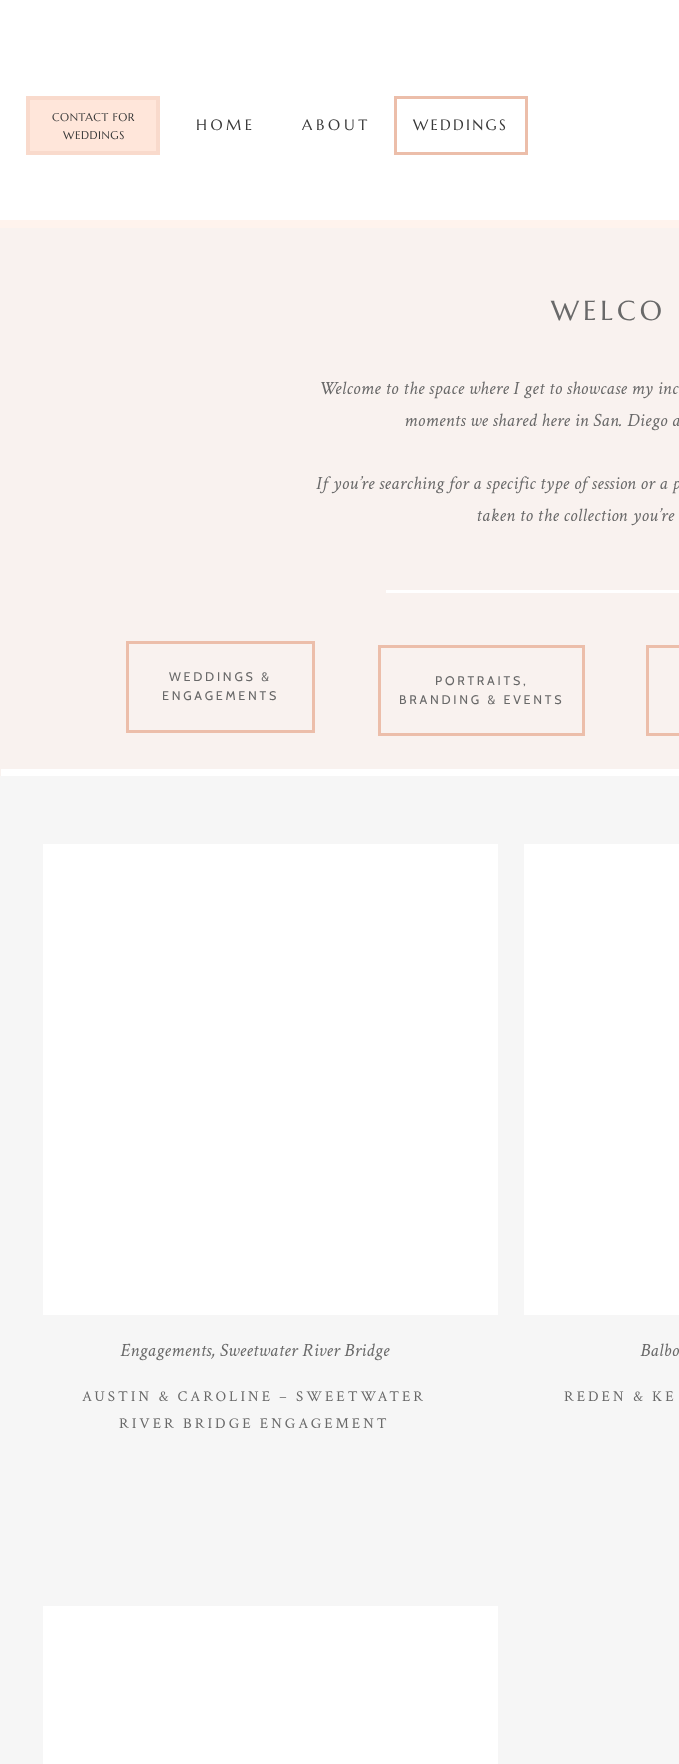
<svg xmlns="http://www.w3.org/2000/svg" width="679" height="1764" viewBox="0 0 679 1764">
  <rect width="100%" height="100%" fill="#ffffff"/>
  <rect x="28" y="98" width="130" height="55" fill="#ffe6da" stroke="#f9dacc" stroke-width="4"/>
  <rect x="395.5" y="97.5" width="131" height="56" fill="none" stroke="#ecbeaa" stroke-width="3"/>
  <text x="52" y="121" font-family="Marcellus" font-size="11.25" letter-spacing="0.5" fill="#383838">CONTACT FOR</text>
  <text x="63" y="139" font-family="Marcellus" font-size="11.25" letter-spacing="0.5" fill="#383838">WEDDINGS</text>
  <text x="196" y="130" font-family="Marcellus" font-size="15" letter-spacing="3.5" fill="#383838">HOME</text>
  <text x="302" y="130" font-family="Marcellus" font-size="15" letter-spacing="3.75" fill="#383838">ABOUT</text>
  <text x="413" y="130" font-family="Marcellus" font-size="15" letter-spacing="2.25" fill="#383838">WEDDINGS</text>
  <rect x="0" y="220" width="679" height="8" fill="#fff3ed"/>
  <rect x="0" y="228" width="679" height="548" fill="#f9f2ef"/>
  <text x="551" y="320" font-family="Marcellus" font-size="27.5" letter-spacing="4" fill="#696969">WELCO</text>
  <text x="319" y="394" font-family="Crimson Text" font-size="18.75" font-style="italic" letter-spacing="0.2" fill="#696969">Welcome to the space where I get to showcase my inc</text>
  <text x="404" y="426" font-family="Crimson Text" font-size="18.75" font-style="italic" letter-spacing="0.2" fill="#696969">moments we shared here in San. Diego a</text>
  <text x="316" y="489" font-family="Crimson Text" font-size="18.75" font-style="italic" letter-spacing="0.2" fill="#696969">If you’re searching for a specific type of session or a p</text>
  <text x="476" y="521" font-family="Crimson Text" font-size="18.75" font-style="italic" letter-spacing="0.2" fill="#696969">taken to the collection you’re</text>
  <rect x="386" y="590" width="293" height="3" fill="#ffffff"/>
  <rect x="127.5" y="642.5" width="186" height="89" fill="none" stroke="#ecbeaa" stroke-width="3"/>
  <rect x="379.5" y="646.5" width="204" height="88" fill="none" stroke="#ecbeaa" stroke-width="3"/>
  <rect x="647.5" y="646.5" width="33" height="88" fill="none" stroke="#ecbeaa" stroke-width="3"/>
  <text x="169" y="681" font-family="Cabin" font-size="12.5" letter-spacing="2.75" fill="#696969">WEDDINGS &amp;</text>
  <text x="162" y="700" font-family="Cabin" font-size="12.5" letter-spacing="2.75" fill="#696969">ENGAGEMENTS</text>
  <text x="435" y="685" font-family="Cabin" font-size="12.5" letter-spacing="2.75" fill="#696969">PORTRAITS,</text>
  <text x="399" y="704" font-family="Cabin" font-size="12.5" letter-spacing="2.75" fill="#696969">BRANDING &amp; EVENTS</text>
  <rect x="1" y="769" width="678" height="7" fill="#ffffff"/>
  <rect x="0" y="776" width="679" height="988" fill="#f6f6f6"/>
  <rect x="43" y="844" width="455" height="471" fill="#ffffff"/>
  <rect x="524" y="844" width="155" height="471" fill="#ffffff"/>
  <text x="120" y="1356" font-family="Crimson Text" font-size="18.75" font-style="italic" letter-spacing="0.2" fill="#696969">Engagements, Sweetwater River Bridge</text>
  <text x="640" y="1356" font-family="Crimson Text" font-size="18.75" font-style="italic" letter-spacing="0.2" fill="#696969">Balbo</text>
  <text x="82" y="1401" font-family="Crimson Text" font-size="15" letter-spacing="3" fill="#696969">AUSTIN &amp; CAROLINE – SWEETWATER</text>
  <text x="119" y="1428" font-family="Crimson Text" font-size="15" letter-spacing="3" fill="#696969">RIVER BRIDGE ENGAGEMENT</text>
  <text x="564" y="1401" font-family="Crimson Text" font-size="15" letter-spacing="3" fill="#696969">REDEN &amp; KE</text>
  <rect x="43" y="1606" width="455" height="158" fill="#ffffff"/>
</svg>
